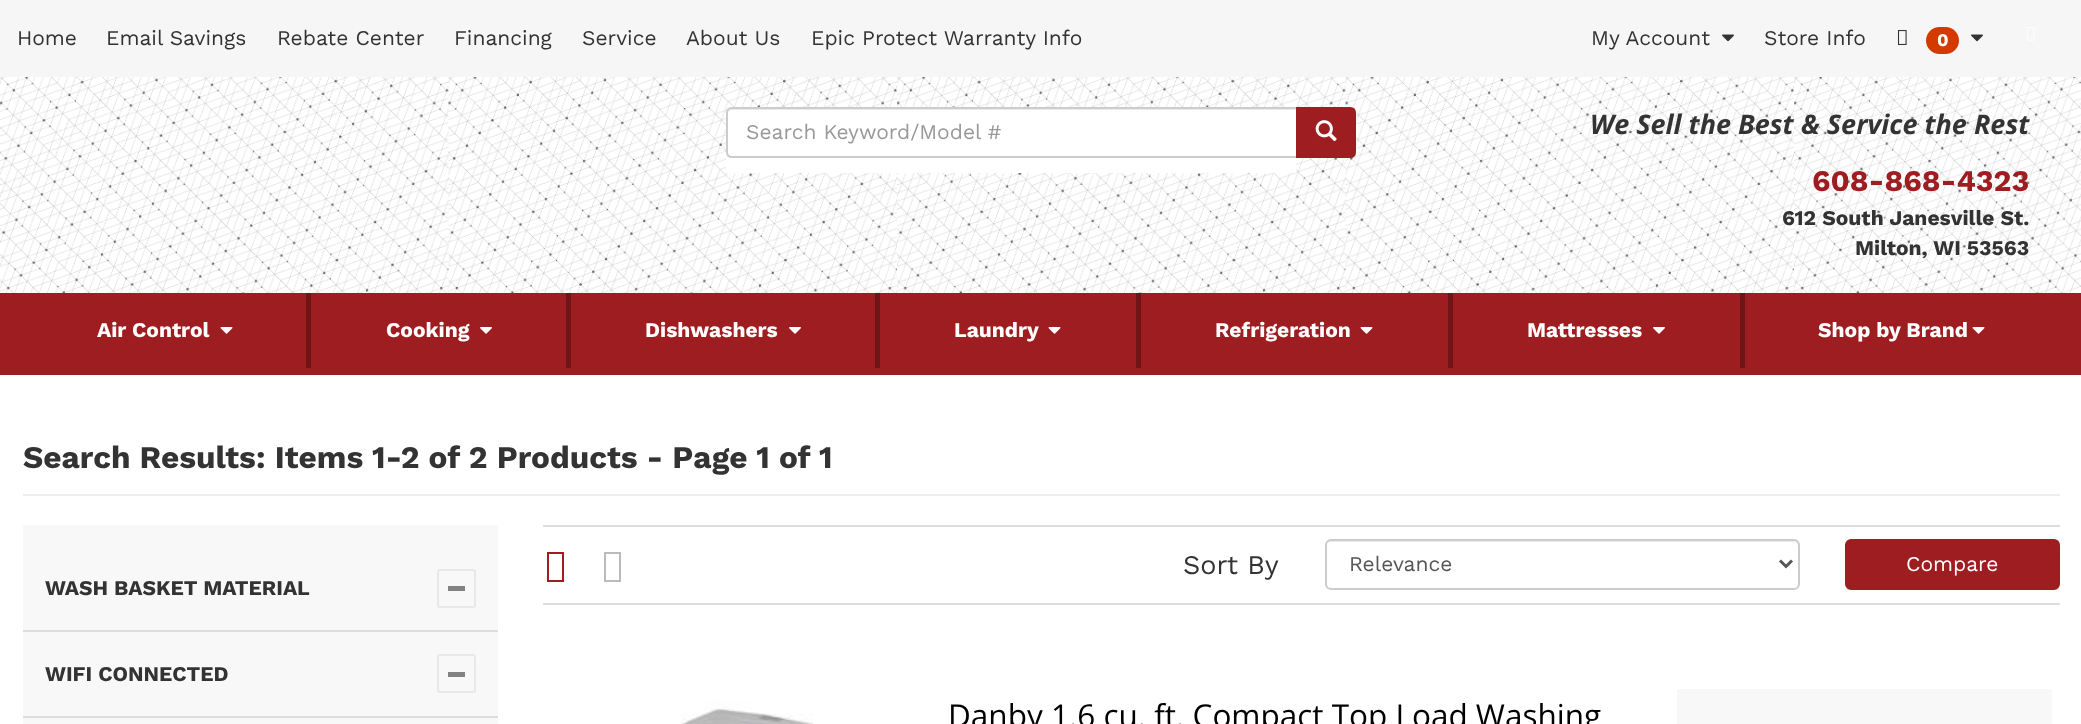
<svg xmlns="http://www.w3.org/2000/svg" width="2081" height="724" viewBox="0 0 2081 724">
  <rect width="100%" height="100%" fill="#ffffff"/>
  <rect x="0" y="0" width="2081" height="77" fill="#f6f6f6"/>
  <text x="17" y="45" font-family="Work Sans" font-size="21" fill="#333333">Home</text>
  <text x="106" y="45" font-family="Work Sans" font-size="21" fill="#333333">Email Savings</text>
  <text x="277" y="45" font-family="Work Sans" font-size="21" fill="#333333">Rebate Center</text>
  <text x="454" y="45" font-family="Work Sans" font-size="21" fill="#333333">Financing</text>
  <text x="582" y="45" font-family="Work Sans" font-size="21" fill="#333333">Service</text>
  <text x="686" y="45" font-family="Work Sans" font-size="21" fill="#333333">About Us</text>
  <text x="811" y="45" font-family="Work Sans" font-size="21" fill="#333333">Epic Protect Warranty Info</text>
  <text x="1591" y="45" font-family="Work Sans" font-size="21" fill="#333333">My Account</text>
  <image x="1722" y="34" width="12" height="8" href="img1.png"/>
  <text x="1764" y="45" font-family="Work Sans" font-size="21" fill="#333333">Store Info</text>
  <image x="1897" y="30" width="10" height="15" href="img2.png"/>
  <rect x="1926" y="27" width="33" height="27" rx="13.5" fill="#d43900"/>
  <text x="1937" y="46" font-family="Work Sans" font-size="18" font-weight="bold" fill="#ffffff">0</text>
  <image x="1971" y="34" width="12" height="8" href="img1.png"/>
  <image x="2027" y="27" width="8" height="14" href="img3.png"/>
  <image x="0" y="77" width="2081" height="216" href="img4.png"/>
  <path d="M732 107H1298V158H732C728.5 158 726 155.5 726 152V113C726 109.5 728.5 107 732 107Z" fill="#ffffff"/>
  <path d="M732 110H1296V108H733C730 108 728 111 728 114C728 112 730 110 732 110Z" fill="#ececec"/>
  <path d="M732 108H1297V157H732C729 157 727 155 727 152V113C727 110 729 108 732 108Z" fill="none" stroke="#cccccc" stroke-width="2"/>
  <text x="746" y="139" font-family="Work Sans" font-size="21" fill="#999999">Search Keyword/Model #</text>
  <path d="M1297 108H1350C1353 108 1355 110 1355 113V152C1355 155 1353 157 1350 157H1297Z" fill="#9e1d21" stroke="#9e1d21" stroke-width="2"/>
  <image x="1315" y="120" width="22" height="22" href="img5.png"/>
  <rect x="726" y="158" width="570" height="15" fill="#ffffff"/>
  <text x="1590" y="134" font-family="Open Sans" font-size="27" font-weight="bold" font-style="italic" fill="#333333">We Sell the Best &amp; Service the Rest</text>
  <text x="1812" y="191" font-family="Work Sans" font-size="30" font-weight="bold" fill="#9e1d21">608-868-4323</text>
  <text x="1782" y="225" font-family="Work Sans" font-size="21" font-weight="bold" fill="#333333">612 South Janesville St.</text>
  <text x="1855" y="255" font-family="Work Sans" font-size="21" font-weight="bold" fill="#333333">Milton, WI 53563</text>
  <rect x="0" y="293" width="2081" height="82" fill="#9e1d21"/>
  <rect x="306" y="293" width="5" height="75" fill="#701516"/>
  <text x="97" y="337" font-family="Work Sans" font-size="21" font-weight="bold" fill="#ffffff">Air Control</text>
  <image x="220" y="327" width="13" height="7" href="img6.png"/>
  <rect x="566" y="293" width="5" height="75" fill="#701516"/>
  <text x="386" y="337" font-family="Work Sans" font-size="21" font-weight="bold" fill="#ffffff">Cooking</text>
  <image x="480" y="327" width="12" height="7" href="img7.png"/>
  <rect x="875" y="293" width="5" height="75" fill="#701516"/>
  <text x="645" y="337" font-family="Work Sans" font-size="21" font-weight="bold" fill="#ffffff">Dishwashers</text>
  <image x="789" y="327" width="12" height="7" href="img7.png"/>
  <rect x="1136" y="293" width="5" height="75" fill="#701516"/>
  <text x="954" y="337" font-family="Work Sans" font-size="21" font-weight="bold" fill="#ffffff">Laundry</text>
  <image x="1048" y="327" width="13" height="7" href="img6.png"/>
  <rect x="1448" y="293" width="5" height="75" fill="#701516"/>
  <text x="1215" y="337" font-family="Work Sans" font-size="21" font-weight="bold" fill="#ffffff">Refrigeration</text>
  <image x="1360" y="327" width="13" height="7" href="img6.png"/>
  <rect x="1740" y="293" width="5" height="75" fill="#701516"/>
  <text x="1527" y="337" font-family="Work Sans" font-size="21" font-weight="bold" fill="#ffffff">Mattresses</text>
  <image x="1653" y="327" width="12" height="7" href="img7.png"/>
  <text x="1818" y="337" font-family="Work Sans" font-size="21" font-weight="bold" fill="#ffffff">Shop by Brand</text>
  <image x="1972" y="327" width="13" height="7" href="img6.png"/>
  <rect x="23" y="494" width="2037" height="2" fill="#eeeeee"/>
  <text x="23" y="468" font-family="Work Sans" font-size="31.5" font-weight="bold" fill="#333333">Search Results: Items 1-2 of 2 Products - Page 1 of 1</text>
  <rect x="23" y="525" width="475" height="199" fill="#f8f8f8"/>
  <rect x="23" y="630" width="475" height="2" fill="#dddddd"/>
  <text x="45" y="595" font-family="Work Sans" font-size="21" font-weight="bold" fill="#333333">WASH BASKET MATERIAL</text>
  <rect x="438" y="570" width="37" height="37" rx="2" fill="none" stroke="#e8e8e8" stroke-width="2"/>
  <rect x="448" y="586" width="17" height="5" fill="#828282"/>
  <rect x="23" y="716" width="475" height="2" fill="#dddddd"/>
  <text x="45" y="681" font-family="Work Sans" font-size="21" font-weight="bold" fill="#333333">WIFI CONNECTED</text>
  <rect x="438" y="655" width="37" height="37" rx="2" fill="none" stroke="#e8e8e8" stroke-width="2"/>
  <rect x="448" y="672" width="17" height="5" fill="#828282"/>
  <rect x="543" y="525" width="1517" height="2" fill="#dddddd"/>
  <rect x="543" y="603" width="1517" height="2" fill="#dddddd"/>
  <path d="M547 582V552H564V582ZM549 580H562V554H549Z" fill="#9e1d21"/>
  <path d="M604 582V552H621V582ZM606 580H619V554H606Z" fill="#bbbbbb"/>
  <text x="1183" y="574" font-family="Work Sans" font-size="27" fill="#333333">Sort By</text>
  <path d="M1330 542H1794C1796 542 1798 544 1798 546V586C1799 585 1799 584 1799 583V545C1799 542 1797 540 1794 540H1331C1328 540 1326 542 1326 545V546C1326 544 1328 542 1330 542Z" fill="#ececec"/>
  <rect x="1326" y="540" width="473" height="49" rx="5" fill="none" stroke="#cccccc" stroke-width="2"/>
  <path d="M1780 560.5L1786 566.5L1792 560.5" fill="none" stroke="#555555" stroke-width="3"/>
  <text x="1349" y="571" font-family="Work Sans" font-size="21" fill="#555555">Relevance</text>
  <rect x="1846" y="540" width="213" height="49" rx="5" fill="#9e1d21" stroke="#9e1d21" stroke-width="2"/>
  <text x="1906" y="571" font-family="Work Sans" font-size="21" fill="#ffffff">Compare</text>
  <image x="681" y="701" width="133" height="23" href="img8.png"/>
  <text x="948" y="727" font-family="Open Sans" font-size="31.5" fill="#000000">Danby 1.6 cu. ft. Compact Top Load Washing</text>
  <rect x="1677" y="689" width="375" height="35" fill="#f8f8f8"/>
</svg>
